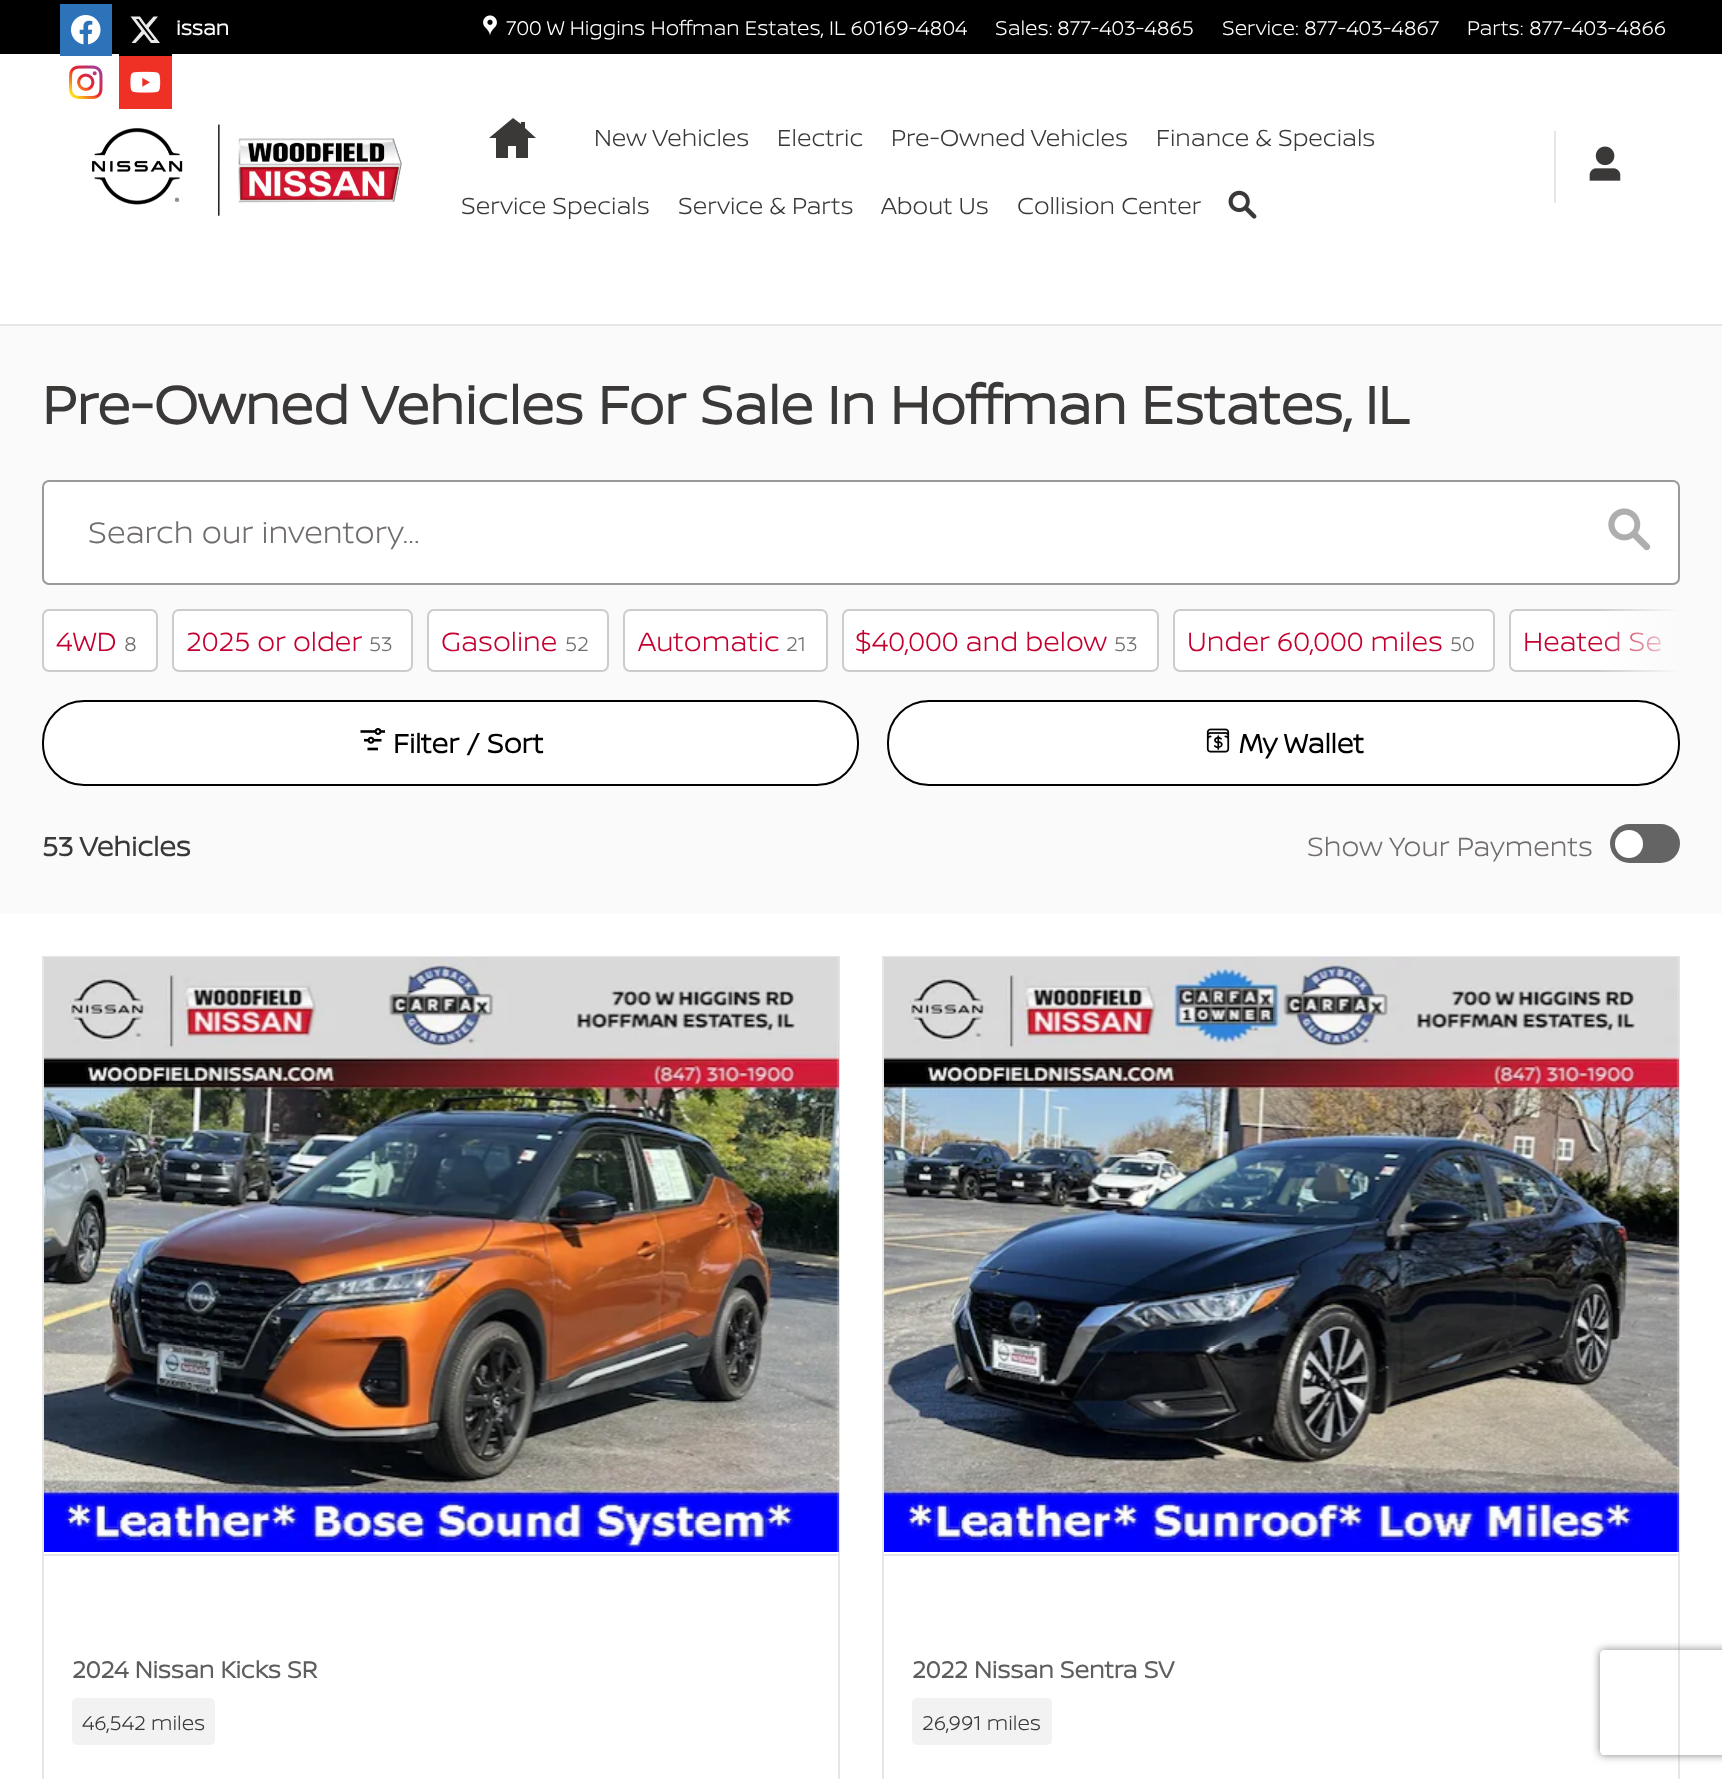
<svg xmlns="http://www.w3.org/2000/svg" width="1722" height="1779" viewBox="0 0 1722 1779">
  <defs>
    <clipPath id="clip1"><rect x="42" y="581" width="1638" height="119"/></clipPath>
    <linearGradient id="g1" gradientUnits="userSpaceOnUse" x1="1680" y1="641" x2="1596" y2="641"><stop offset="0" stop-color="#fafafa"/><stop offset="1" stop-color="#fafafa" stop-opacity="0"/></linearGradient>
    <clipPath id="clip2"><path d="M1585 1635H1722V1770H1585ZM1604 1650H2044C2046 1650 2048 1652 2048 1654V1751C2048 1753 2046 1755 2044 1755H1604C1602 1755 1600 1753 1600 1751V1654C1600 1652 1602 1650 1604 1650Z" clip-rule="evenodd"/></clipPath>
    <filter id="blur1" x="-50%" y="-200%" width="200%" height="500%"><feGaussianBlur stdDeviation="4.5"/></filter>
  </defs>
  <rect width="100%" height="100%" fill="#ffffff"/>
  <rect x="0" y="324" width="1722" height="2" fill="#e6e6e6"/>
  <rect x="0" y="0" width="1722" height="54" fill="#000000"/>
  <image x="60" y="4" width="52" height="52" href="img1.png"/>
  <path d="M153.5 16.5H158L148.5 28L160 43H151L144 34L135.5 43H131.5L141.5 31L130.5 16.5H140L146 25ZM152 40H154.5L138.5 19H136Z" fill="#e7e9ea"/>
  <rect x="119" y="54" width="53" height="2" fill="#000000"/>
  <image x="68" y="65" width="35" height="34" href="img2.png"/>
  <image x="119" y="56" width="53" height="53" href="img3.png"/>
  <text x="176" y="35" font-family="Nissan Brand" font-size="21" font-weight="bold" fill="#ffffff">issan</text>
  <image x="483" y="15" width="14" height="21" href="img4.png"/>
  <text x="506" y="35" font-family="Nissan Brand" font-size="21" font-weight="300" fill="#ffffff">700 W Higgins Hoffman Estates,</text>
  <text x="829" y="35" font-family="Nissan Brand" font-size="21" font-weight="300" fill="#ffffff">IL 60169-4804</text>
  <text x="995" y="35" font-family="Nissan Brand" font-size="21" font-weight="300" fill="#ffffff">Sales:</text>
  <text x="1057" y="35" font-family="Nissan Brand" font-size="21" font-weight="300" fill="#ffffff">877-403-4865</text>
  <text x="1222" y="35" font-family="Nissan Brand" font-size="21" font-weight="300" fill="#ffffff">Service:</text>
  <text x="1304" y="35" font-family="Nissan Brand" font-size="21" font-weight="300" fill="#ffffff">877-403-4867</text>
  <text x="1467" y="35" font-family="Nissan Brand" font-size="21" font-weight="300" fill="#ffffff">Parts:</text>
  <text x="1529" y="35" font-family="Nissan Brand" font-size="21" font-weight="300" fill="#ffffff">877-403-4866</text>
  <image x="92" y="124" width="310" height="92" href="img5.png"/>
  <path d="M525 128V122H521V124L513 118L489 138H496V158H508V146H516V158H528V138H536Z" fill="#3b3838"/>
  <text x="594" y="146" font-family="Nissan Brand" font-size="24.5" font-weight="300" fill="#3b3838">New Vehicles</text>
  <text x="777" y="146" font-family="Nissan Brand" font-size="24.5" font-weight="300" fill="#3b3838">Electric</text>
  <text x="891" y="146" font-family="Nissan Brand" font-size="24.5" font-weight="300" fill="#3b3838">Pre-Owned Vehicles</text>
  <text x="1156" y="146" font-family="Nissan Brand" font-size="24.5" font-weight="300" fill="#3b3838">Finance &amp; Specials</text>
  <text x="461" y="214" font-family="Nissan Brand" font-size="24.5" font-weight="300" fill="#3b3838">Service Specials</text>
  <text x="678" y="214" font-family="Nissan Brand" font-size="24.5" font-weight="300" fill="#3b3838">Service &amp; Parts</text>
  <text x="881" y="214" font-family="Nissan Brand" font-size="24.5" font-weight="300" fill="#3b3838">About Us</text>
  <text x="1017" y="214" font-family="Nissan Brand" font-size="24.5" font-weight="300" fill="#3b3838">Collision Center</text>
  <image x="1228" y="190" width="29" height="29" href="img6.png"/>
  <rect x="1554" y="131" width="2" height="72" fill="#e6e6e6"/>
  <image x="1589" y="146" width="32" height="35" href="img7.png"/>
  <rect x="0" y="326" width="1722" height="588" fill="#fafafa"/>
  <text x="42" y="424" font-family="Nissan Brand" font-size="56" font-weight="bold" fill="#3b3838">Pre-Owned Vehicles For Sale In Hoffman Estates, IL</text>
  <rect x="43" y="481" width="1636" height="103" rx="6" fill="#ffffff" stroke="#999999" stroke-width="2"/>
  <text x="88" y="543" font-family="Nissan Brand" font-size="31.5" font-weight="300" fill="#716d6d">Search our inventory…</text>
  <image x="1608" y="508" width="43" height="43" href="img8.png"/>
  <path d="M1516 609H1680V672H1516C1512 672 1509 669 1509 665V616C1509 612 1512 609 1516 609Z" fill="#ffffff"/>
  <g clip-path="url(#clip1)">
    <rect x="1510" y="610" width="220" height="61" rx="6" fill="none" stroke="#cccccc" stroke-width="2"/>
  </g>
  <text x="1523" y="651" font-family="Nissan Brand" font-size="28" font-weight="300" fill="#c3002f">Heated Se</text>
  <rect x="1598" y="609" width="82" height="63" fill="url(#g1)"/>
  <rect x="43" y="610" width="114" height="61" rx="6" fill="#ffffff" stroke="#cccccc" stroke-width="2"/>
  <text x="56" y="651" font-family="Nissan Brand" font-size="28" font-weight="300" fill="#c3002f">4WD</text>
  <text x="124" y="651" font-family="Nissan Brand" font-size="21" font-weight="300" fill="#716d6d">8</text>
  <rect x="173" y="610" width="239" height="61" rx="6" fill="#ffffff" stroke="#cccccc" stroke-width="2"/>
  <text x="186" y="651" font-family="Nissan Brand" font-size="28" font-weight="300" fill="#c3002f">2025 or older</text>
  <text x="369" y="651" font-family="Nissan Brand" font-size="21" font-weight="300" fill="#716d6d">53</text>
  <rect x="428" y="610" width="180" height="61" rx="6" fill="#ffffff" stroke="#cccccc" stroke-width="2"/>
  <text x="441" y="651" font-family="Nissan Brand" font-size="28" font-weight="300" fill="#c3002f">Gasoline</text>
  <text x="565" y="651" font-family="Nissan Brand" font-size="21" font-weight="300" fill="#716d6d">52</text>
  <rect x="624" y="610" width="203" height="61" rx="6" fill="#ffffff" stroke="#cccccc" stroke-width="2"/>
  <text x="638" y="651" font-family="Nissan Brand" font-size="28" font-weight="300" fill="#c3002f">Automatic</text>
  <text x="786" y="651" font-family="Nissan Brand" font-size="21" font-weight="300" fill="#716d6d">21</text>
  <rect x="843" y="610" width="315" height="61" rx="6" fill="#ffffff" stroke="#cccccc" stroke-width="2"/>
  <text x="855" y="651" font-family="Nissan Brand" font-size="28" font-weight="300" fill="#c3002f">$40,000 and below</text>
  <text x="1114" y="651" font-family="Nissan Brand" font-size="21" font-weight="300" fill="#716d6d">53</text>
  <rect x="1174" y="610" width="320" height="61" rx="6" fill="#ffffff" stroke="#cccccc" stroke-width="2"/>
  <text x="1187" y="651" font-family="Nissan Brand" font-size="28" font-weight="300" fill="#c3002f">Under 60,000 miles</text>
  <text x="1450" y="651" font-family="Nissan Brand" font-size="21" font-weight="300" fill="#716d6d">50</text>
  <rect x="43" y="701" width="815" height="84" rx="41" fill="#ffffff" stroke="#000000" stroke-width="2"/>
  <image x="360" y="728" width="25" height="23" href="img9.png"/>
  <text x="393" y="753" font-family="Nissan Brand" font-size="28" font-weight="bold" fill="#000000">Filter / Sort</text>
  <rect x="888" y="701" width="791" height="84" rx="41" fill="#ffffff" stroke="#000000" stroke-width="2"/>
  <image x="1206" y="728" width="24" height="25" href="img10.png"/>
  <text x="1239" y="753" font-family="Nissan Brand" font-size="28" font-weight="bold" fill="#000000">My Wallet</text>
  <text x="42" y="856" font-family="Nissan Brand" font-size="28" font-weight="bold" fill="#3b3838">53 Vehicles</text>
  <text x="1307" y="856" font-family="Nissan Brand" font-size="28" font-weight="300" fill="#716d6d">Show Your Payments</text>
  <rect x="1610" y="824" width="70" height="39" rx="19.5" fill="#646464"/>
  <circle cx="1629" cy="844" r="14" fill="#ffffff"/>
  <rect x="43" y="957" width="796" height="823" fill="none" stroke="#e6e6e6" stroke-width="2"/>
  <rect x="44" y="1554" width="794" height="2" fill="#e6e6e6"/>
  <image x="44" y="957" width="795" height="595" href="img11.png"/>
  <text x="72" y="1678" font-family="Nissan Brand" font-size="24.5" font-weight="bold" fill="#605d5d">2024 Nissan Kicks SR</text>
  <rect x="72" y="1698" width="143" height="47" rx="5" fill="#f2f2f2"/>
  <text x="82" y="1730" font-family="Nissan Brand" font-size="21" font-weight="300" fill="#3b3838">46,542 miles</text>
  <rect x="883" y="957" width="796" height="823" fill="none" stroke="#e6e6e6" stroke-width="2"/>
  <rect x="884" y="1554" width="794" height="2" fill="#e6e6e6"/>
  <image x="884" y="957" width="795" height="595" href="img12.png"/>
  <text x="912" y="1678" font-family="Nissan Brand" font-size="24.5" font-weight="bold" fill="#605d5d">2022 Nissan Sentra SV</text>
  <rect x="912" y="1698" width="140" height="47" rx="5" fill="#f2f2f2"/>
  <text x="922" y="1730" font-family="Nissan Brand" font-size="21" font-weight="300" fill="#3b3838">26,991 miles</text>
  <g clip-path="url(#clip2)">
    <rect x="1600" y="1650" width="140" height="105" rx="4" fill="#808080" filter="url(#blur1)"/>
  </g>
</svg>
